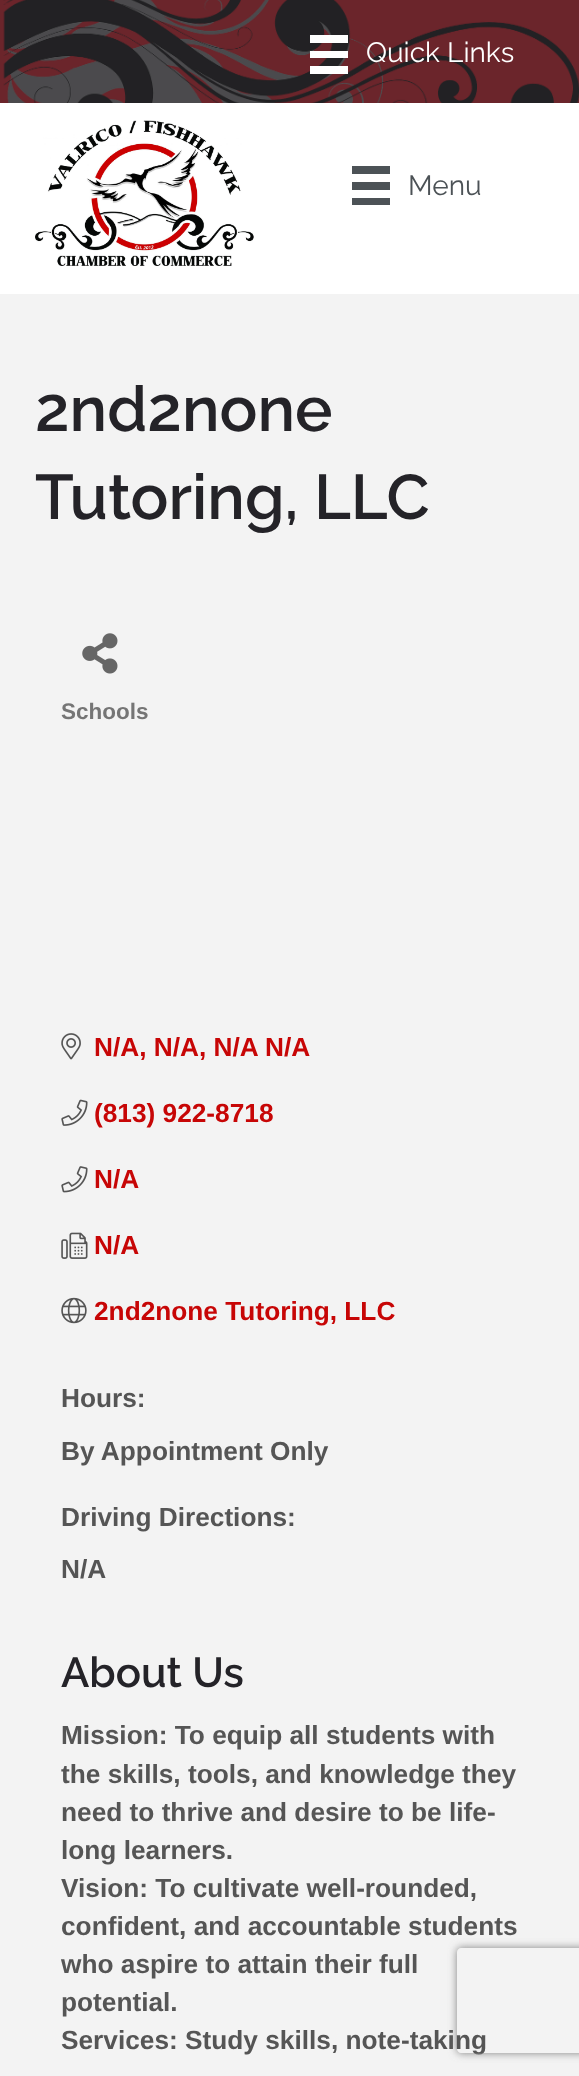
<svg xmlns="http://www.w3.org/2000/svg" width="579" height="2076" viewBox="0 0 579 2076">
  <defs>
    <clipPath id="clip1"><path d="M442 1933H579V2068H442ZM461 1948H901C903 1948 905 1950 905 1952V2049C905 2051 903 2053 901 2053H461C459 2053 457 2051 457 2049V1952C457 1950 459 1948 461 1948Z" clip-rule="evenodd"/></clipPath>
    <filter id="blur1" x="-50%" y="-200%" width="200%" height="500%"><feGaussianBlur stdDeviation="4.5"/></filter>
  </defs>
  <rect width="100%" height="100%" fill="#6b252b"/>
  <image x="3" y="0" width="576" height="103" href="img1.png"/>
  <rect x="310" y="35" width="38" height="8" fill="#ffffff"/>
  <rect x="310" y="51" width="38" height="7" fill="#ffffff"/>
  <rect x="310" y="66" width="38" height="8" fill="#ffffff"/>
  <text x="366" y="62" font-family="Raleway" font-size="28" fill="#ffffff">Quick Links</text>
  <rect x="0" y="103" width="579" height="191" fill="#ffffff"/>
  <image x="35" y="120" width="219" height="146" href="img2.png"/>
  <rect x="352" y="166" width="38" height="8" fill="#4c5256"/>
  <rect x="352" y="182" width="38" height="8" fill="#4c5256"/>
  <rect x="352" y="198" width="38" height="7" fill="#4c5256"/>
  <text x="408" y="195" font-family="Raleway" font-size="28" fill="#4c5256">Menu</text>
  <rect x="0" y="294" width="579" height="1782" fill="#f3f3f3"/>
  <text x="35" y="431" font-family="Raleway" font-size="63" font-weight="600" fill="#242328">2nd2none</text>
  <text x="35" y="519" font-family="Raleway" font-size="63" font-weight="600" fill="#242328">Tutoring, LLC</text>
  <image x="82" y="633" width="36" height="41" href="img3.png"/>
  <text x="61" y="719" font-family="Liberation Sans" font-size="22.5" font-weight="bold" fill="#757575">Schools</text>
  <image x="61" y="1033" width="20" height="27" href="img4.png"/>
  <text x="94" y="1056" font-family="Liberation Sans" font-size="26.25" font-weight="bold" fill="#c70606">N/A, N/A, N/A</text>
  <text x="265" y="1056" font-family="Liberation Sans" font-size="26.25" font-weight="bold" fill="#c70606">N/A</text>
  <image x="61" y="1099" width="27" height="27" href="img5.png"/>
  <text x="94" y="1122" font-family="Liberation Sans" font-size="26.25" font-weight="bold" fill="#c70606">(813) 922-8718</text>
  <image x="61" y="1166" width="27" height="27" href="img6.png"/>
  <text x="94" y="1188" font-family="Liberation Sans" font-size="26.25" font-weight="bold" fill="#c70606">N/A</text>
  <image x="61" y="1232" width="27" height="27" href="img7.png"/>
  <text x="94" y="1254" font-family="Liberation Sans" font-size="26.25" font-weight="bold" fill="#c70606">N/A</text>
  <image x="61" y="1297" width="26" height="27" href="img8.png"/>
  <text x="94" y="1320" font-family="Liberation Sans" font-size="26.25" font-weight="bold" fill="#c70606">2nd2none Tutoring, LLC</text>
  <text x="61" y="1407" font-family="Liberation Sans" font-size="26.25" font-weight="bold" fill="#555555">Hours:</text>
  <text x="61" y="1460" font-family="Liberation Sans" font-size="26.25" font-weight="bold" fill="#555555">By Appointment Only</text>
  <text x="61" y="1526" font-family="Liberation Sans" font-size="26.25" font-weight="bold" fill="#555555">Driving Directions:</text>
  <text x="61" y="1578" font-family="Liberation Sans" font-size="26.25" font-weight="bold" fill="#555555">N/A</text>
  <text x="61" y="1687" font-family="Raleway" font-size="42" font-weight="600" fill="#242328">About Us</text>
  <text x="61" y="1744" font-family="Liberation Sans" font-size="26.25" font-weight="bold" fill="#555555">Mission: To equip all students with</text>
  <text x="61" y="1783" font-family="Liberation Sans" font-size="26.25" font-weight="bold" fill="#555555">the skills, tools, and knowledge they</text>
  <text x="61" y="1821" font-family="Liberation Sans" font-size="26.25" font-weight="bold" fill="#555555">need to thrive and desire to be life-</text>
  <text x="61" y="1859" font-family="Liberation Sans" font-size="26.25" font-weight="bold" fill="#555555">long learners.</text>
  <text x="61" y="1897" font-family="Liberation Sans" font-size="26.25" font-weight="bold" fill="#555555">Vision: To cultivate well-rounded,</text>
  <text x="61" y="1935" font-family="Liberation Sans" font-size="26.25" font-weight="bold" fill="#555555">confident, and accountable students</text>
  <text x="61" y="1973" font-family="Liberation Sans" font-size="26.25" font-weight="bold" fill="#555555">who aspire to attain their full</text>
  <text x="61" y="2011" font-family="Liberation Sans" font-size="26.25" font-weight="bold" fill="#555555">potential.</text>
  <text x="61" y="2049" font-family="Liberation Sans" font-size="26.25" font-weight="bold" fill="#555555">Services: Study skills, note-taking</text>
  <g clip-path="url(#clip1)">
    <rect x="457" y="1948" width="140" height="105" rx="4" fill="#808080" filter="url(#blur1)"/>
  </g>
</svg>
